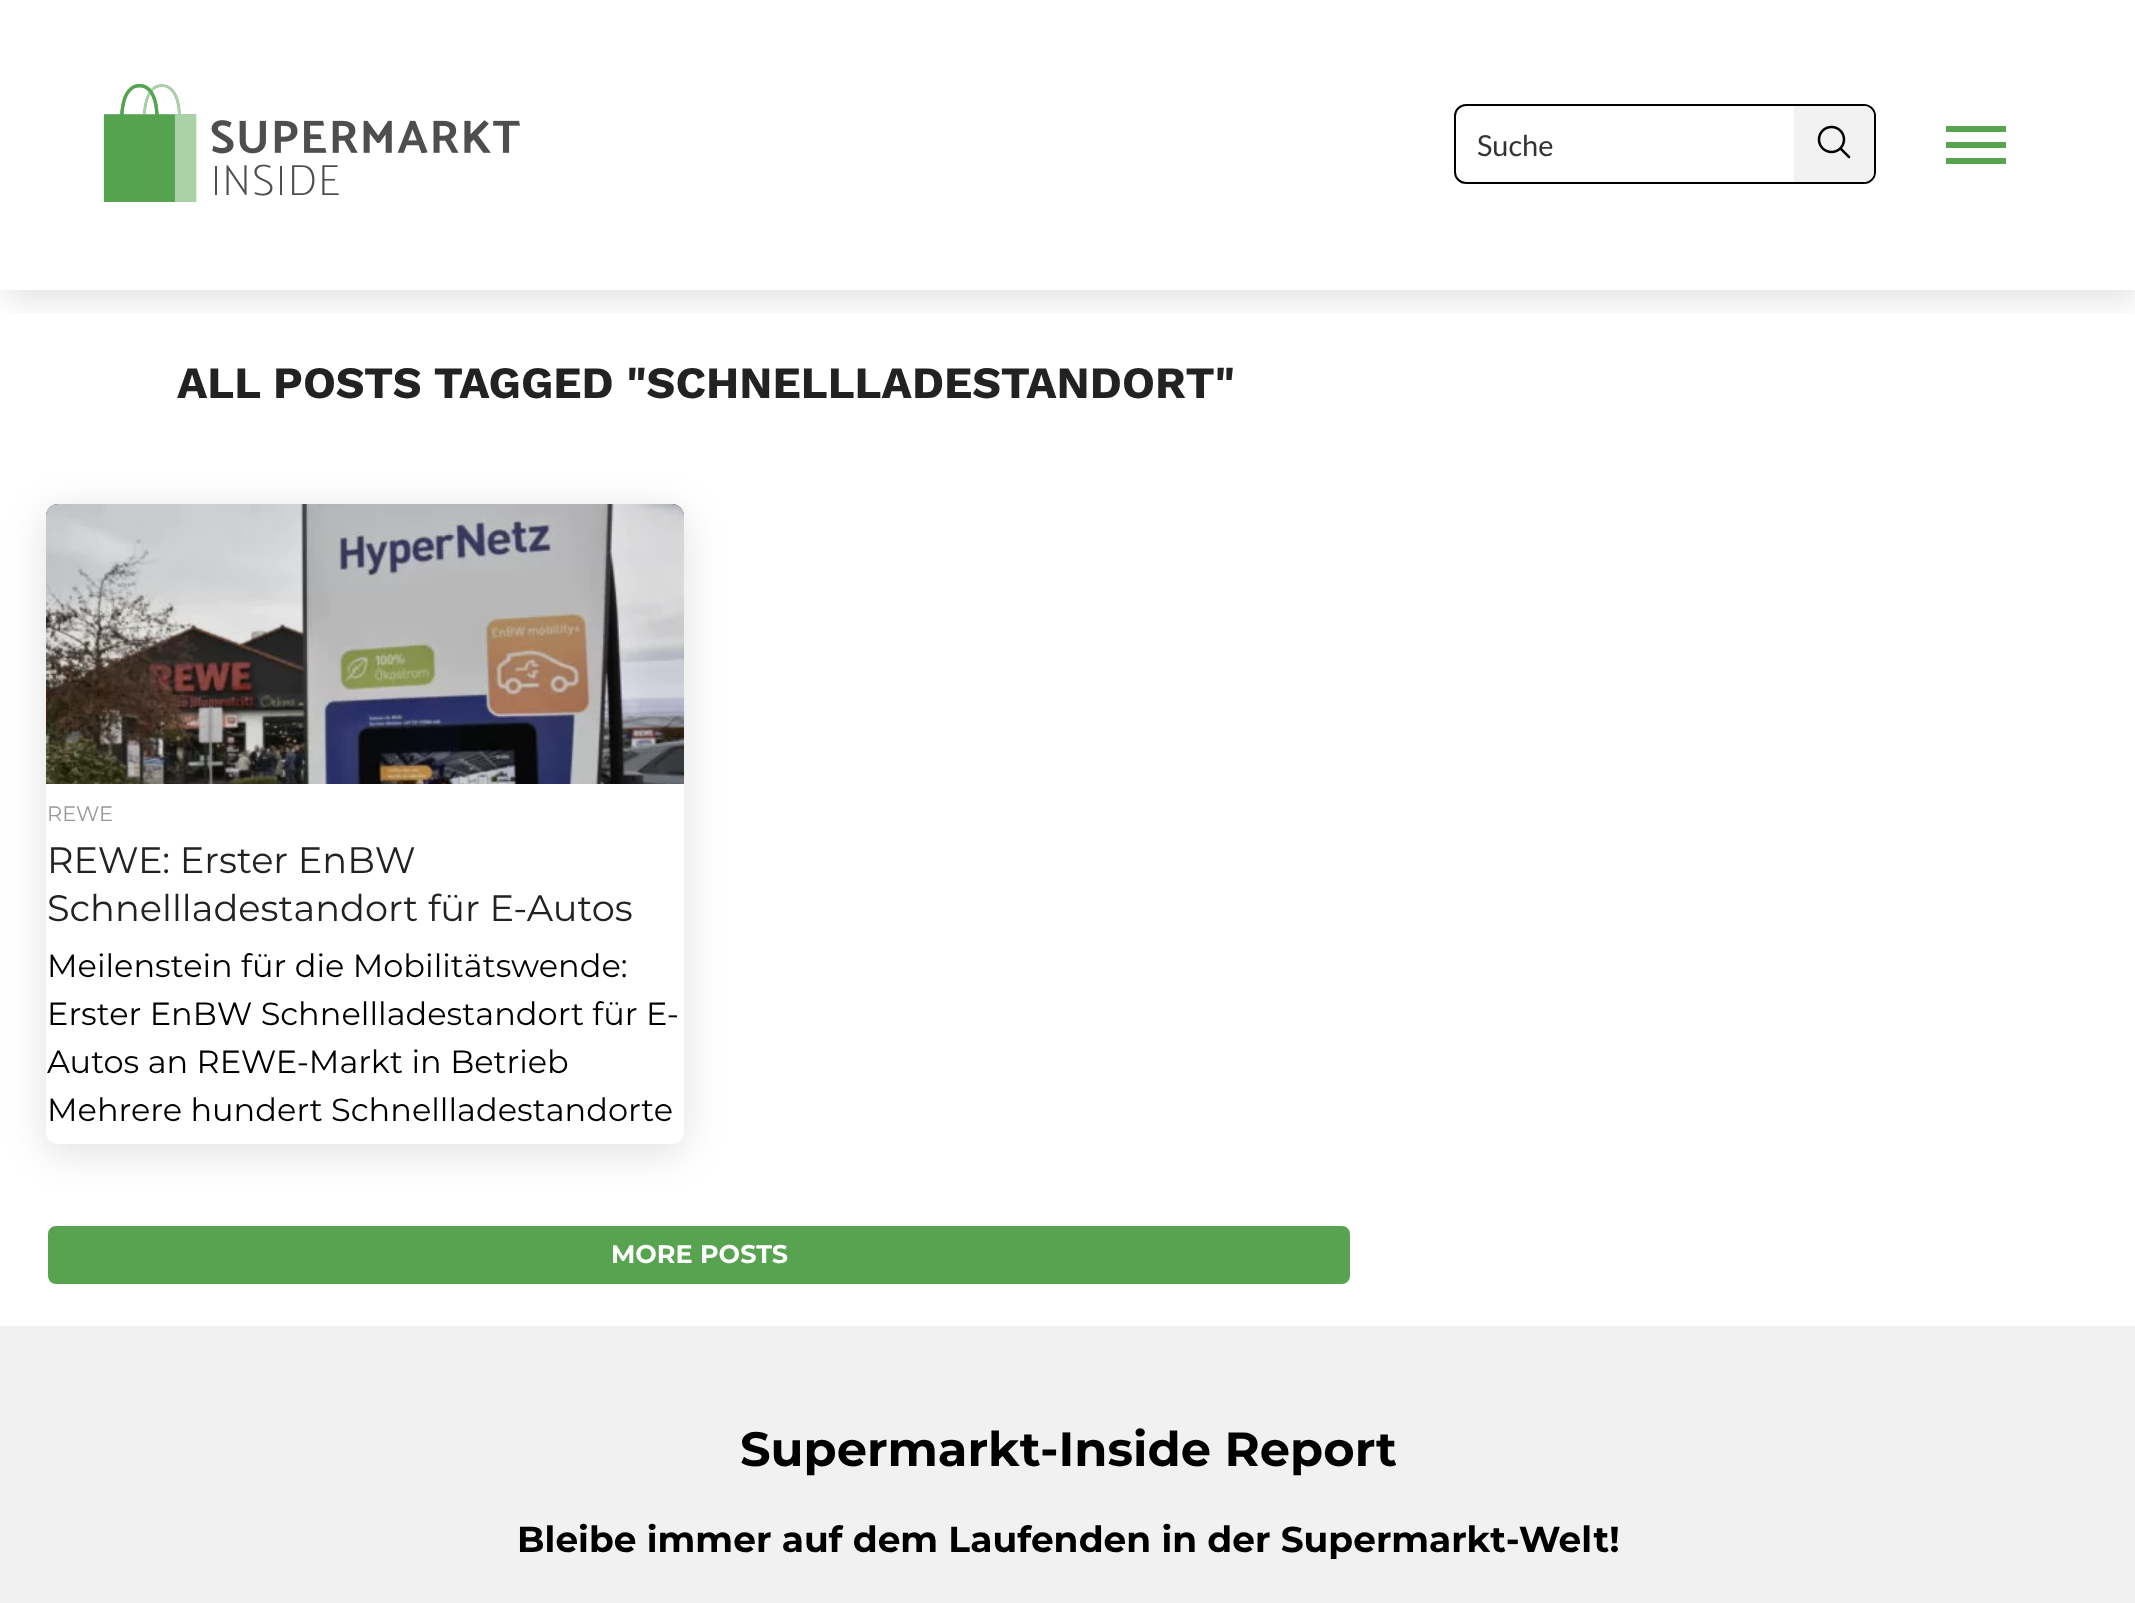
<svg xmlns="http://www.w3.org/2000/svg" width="2135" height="1603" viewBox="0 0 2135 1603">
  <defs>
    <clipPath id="clip1"><rect x="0" y="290" width="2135" height="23"/></clipPath>
    <filter id="blur1" x="-50%" y="-200%" width="200%" height="500%"><feGaussianBlur stdDeviation="16"/></filter>
    <clipPath id="clip2"><path d="M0 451H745V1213H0ZM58 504H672C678.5 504 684 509.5 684 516V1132C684 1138.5 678.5 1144 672 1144H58C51.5 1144 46 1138.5 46 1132V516C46 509.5 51.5 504 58 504Z" clip-rule="evenodd"/></clipPath>
    <filter id="blur2" x="-50%" y="-200%" width="200%" height="500%"><feGaussianBlur stdDeviation="20"/></filter>
  </defs>
  <rect width="100%" height="100%" fill="#ffffff"/>
  <g clip-path="url(#clip1)">
    <rect x="4" y="8" width="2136" height="290" fill="#000000" fill-opacity="0.12" filter="url(#blur1)"/>
  </g>
  <image x="103" y="84" width="417" height="118" href="img1.png"/>
  <rect x="1455" y="105" width="420" height="78" rx="11" fill="none" stroke="#000000" stroke-width="2"/>
  <text x="1477" y="156" font-family="Lato" font-size="29" fill="#333333">Suche</text>
  <path d="M1794 106H1864C1869.5 106 1874 110.5 1874 116V172C1874 177.5 1869.5 182 1864 182H1794Z" fill="#f2f2f2"/>
  <image x="1817" y="125" width="34" height="34" href="img2.png"/>
  <rect x="1946" y="126" width="60" height="6" fill="#57a34f"/>
  <rect x="1946" y="142" width="60" height="6" fill="#57a34f"/>
  <rect x="1946" y="158" width="60" height="6" fill="#57a34f"/>
  <text x="177" y="398" font-family="Work Sans" font-size="44.8" font-weight="bold" fill="#222222">ALL POSTS TAGGED "SCHNELLLADESTANDORT"</text>
  <g clip-path="url(#clip2)">
    <rect x="46" y="512" width="638" height="640" rx="12" fill="#000000" fill-opacity="0.12" filter="url(#blur2)"/>
  </g>
  <path d="M58 504H672C678.5 504 684 509.5 684 516V784H46V516C46 509.5 51.5 504 58 504Z" fill="#000000"/>
  <image x="46" y="504" width="638" height="280" href="img3.png"/>
  <text x="47" y="821" font-family="Montserrat" font-size="21" fill="#999999">REWE</text>
  <text x="47" y="873" font-family="Montserrat" font-size="36.75" fill="#222222">REWE: Erster EnBW</text>
  <text x="47" y="921" font-family="Montserrat" font-size="36.75" fill="#222222">Schnellladestandort für E-Autos</text>
  <text x="47" y="977" font-family="Montserrat" font-size="32" fill="#000000">Meilenstein für die Mobilitätswende:</text>
  <text x="47" y="1025" font-family="Montserrat" font-size="32" fill="#000000">Erster EnBW Schnellladestandort für E-</text>
  <text x="47" y="1073" font-family="Montserrat" font-size="32" fill="#000000">Autos an REWE-Markt in Betrieb</text>
  <text x="47" y="1121" font-family="Montserrat" font-size="32" fill="#000000">Mehrere hundert Schnellladestandorte</text>
  <rect x="47" y="1225" width="1304" height="60" rx="9" fill="#57a34f" stroke="#ffffff" stroke-width="2"/>
  <text x="611" y="1263" font-family="Montserrat" font-size="25.5" font-weight="bold" fill="#ffffff">MORE POSTS</text>
  <rect x="0" y="1326" width="2135" height="277" fill="#f1f1f1"/>
  <text x="740" y="1466" font-family="Montserrat" font-size="48" font-weight="bold" fill="#000000">Supermarkt-Inside Report</text>
  <text x="517" y="1552" font-family="Montserrat" font-size="36" font-weight="bold" fill="#000000">Bleibe immer auf dem Laufenden in der Supermarkt-Welt!</text>
</svg>
